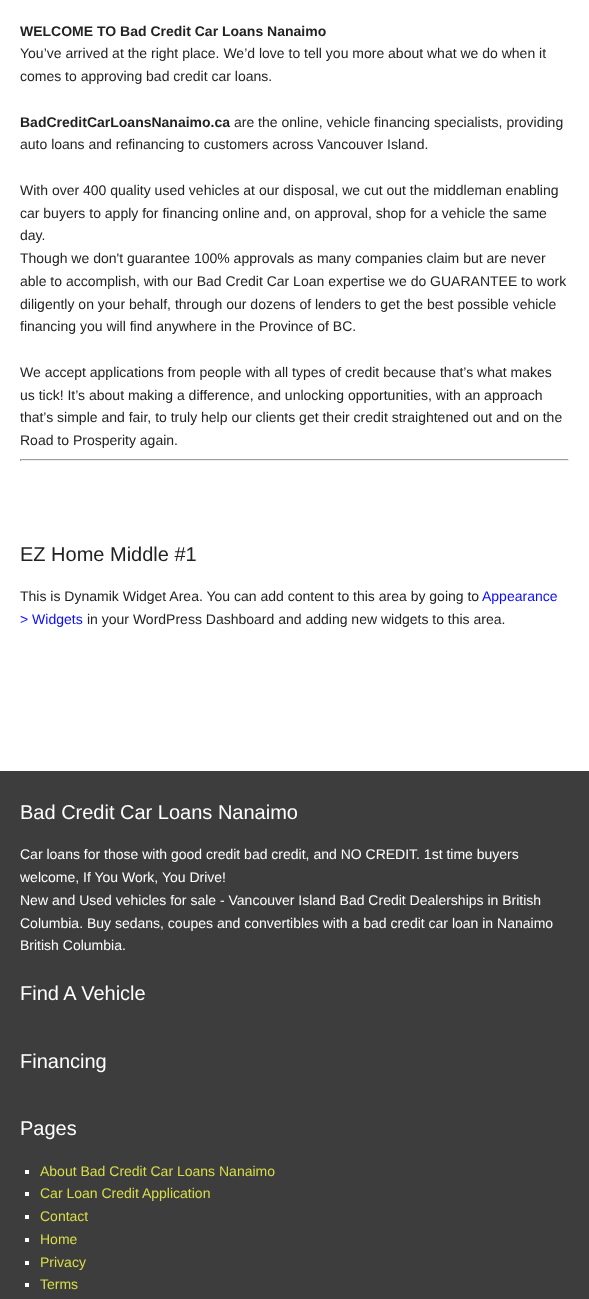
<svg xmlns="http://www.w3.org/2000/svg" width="589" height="1299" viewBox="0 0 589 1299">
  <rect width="100%" height="100%" fill="#3d3d3d"/>
  <rect x="0" y="0" width="589" height="771" fill="#ffffff"/>
  <text x="20" y="36" font-family="Liberation Sans" font-size="14" font-weight="bold" fill="#222222">WELCOME TO Bad Credit Car Loans Nanaimo</text>
  <text x="20" y="58" font-family="Liberation Sans" font-size="14" fill="#222222">You’ve arrived at the right place. We’d love to tell you more about what we do when it</text>
  <text x="20" y="81" font-family="Liberation Sans" font-size="14" fill="#222222">comes to approving bad credit car loans.</text>
  <text x="20" y="127" font-family="Liberation Sans" font-size="14" font-weight="bold" fill="#222222">BadCreditCarLoansNanaimo.ca</text>
  <text x="234" y="127" font-family="Liberation Sans" font-size="14" fill="#222222">are the online, vehicle financing specialists, providing</text>
  <text x="20" y="149" font-family="Liberation Sans" font-size="14" fill="#222222">auto loans and refinancing to customers across Vancouver Island.</text>
  <text x="20" y="195" font-family="Liberation Sans" font-size="14" fill="#222222">With over 400 quality used vehicles at our disposal, we cut out the middleman enabling</text>
  <text x="20" y="218" font-family="Liberation Sans" font-size="14" fill="#222222">car buyers to apply for financing online and, on approval, shop for a vehicle the same</text>
  <text x="20" y="240" font-family="Liberation Sans" font-size="14" fill="#222222">day.</text>
  <text x="20" y="263" font-family="Liberation Sans" font-size="14" fill="#222222">Though we don't guarantee 100% approvals as many companies claim but are never</text>
  <text x="20" y="286" font-family="Liberation Sans" font-size="14" fill="#222222">able to accomplish, with our Bad Credit Car Loan expertise we do GUARANTEE to work</text>
  <text x="20" y="309" font-family="Liberation Sans" font-size="14" fill="#222222">diligently on your behalf, through our dozens of lenders to get the best possible vehicle</text>
  <text x="20" y="331" font-family="Liberation Sans" font-size="14" fill="#222222">financing you will find anywhere in the Province of BC.</text>
  <text x="20" y="377" font-family="Liberation Sans" font-size="14" fill="#222222">We accept applications from people with all types of credit because that’s what makes</text>
  <text x="20" y="400" font-family="Liberation Sans" font-size="14" fill="#222222">us tick! It’s about making a difference, and unlocking opportunities, with an approach</text>
  <text x="20" y="422" font-family="Liberation Sans" font-size="14" fill="#222222">that’s simple and fair, to truly help our clients get their credit straightened out and on the</text>
  <text x="20" y="445" font-family="Liberation Sans" font-size="14" fill="#222222">Road to Prosperity again.</text>
  <rect x="20" y="459" width="549" height="1" fill="#9f9f9f"/>
  <rect x="568" y="459" width="1" height="2" fill="#eeeeee"/>
  <rect x="20" y="460" width="549" height="1" fill="#eeeeee"/>
  <rect x="20" y="459" width="1" height="2" fill="#9f9f9f"/>
  <text x="20" y="561" font-family="Liberation Sans" font-size="20" fill="#222222">EZ Home Middle #1</text>
  <text x="20" y="601" font-family="Liberation Sans" font-size="14" fill="#222222">This is Dynamik Widget Area. You can add content to this area by going to</text>
  <text x="482" y="601" font-family="Liberation Sans" font-size="14" fill="#0a0aff">Appearance</text>
  <text x="20" y="624" font-family="Liberation Sans" font-size="14" fill="#0a0aff">&gt; Widgets</text>
  <text x="87" y="624" font-family="Liberation Sans" font-size="14" fill="#222222">in your WordPress Dashboard and adding new widgets to this area.</text>
  <text x="20" y="819" font-family="Liberation Sans" font-size="20" fill="#ffffff">Bad Credit Car Loans Nanaimo</text>
  <text x="20" y="859" font-family="Liberation Sans" font-size="14" fill="#ffffff">Car loans for those with good credit bad credit, and NO CREDIT. 1st time buyers</text>
  <text x="20" y="882" font-family="Liberation Sans" font-size="14" fill="#ffffff">welcome, If You Work, You Drive!</text>
  <text x="20" y="905" font-family="Liberation Sans" font-size="14" fill="#ffffff">New and Used vehicles for sale - Vancouver Island Bad Credit Dealerships in British</text>
  <text x="20" y="928" font-family="Liberation Sans" font-size="14" fill="#ffffff">Columbia. Buy sedans, coupes and convertibles with a bad credit car loan in Nanaimo</text>
  <text x="20" y="950" font-family="Liberation Sans" font-size="14" fill="#ffffff">British Columbia.</text>
  <text x="20" y="1000" font-family="Liberation Sans" font-size="20" fill="#ffffff">Find A Vehicle</text>
  <text x="20" y="1068" font-family="Liberation Sans" font-size="20" fill="#ffffff">Financing</text>
  <text x="20" y="1135" font-family="Liberation Sans" font-size="20" fill="#ffffff">Pages</text>
  <rect x="25" y="1170" width="4" height="4" fill="#ffffff"/>
  <text x="40" y="1176" font-family="Liberation Sans" font-size="14" fill="#d9de4b">About Bad Credit Car Loans Nanaimo</text>
  <rect x="25" y="1192" width="4" height="4" fill="#ffffff"/>
  <text x="40" y="1198" font-family="Liberation Sans" font-size="14" fill="#d9de4b">Car Loan Credit Application</text>
  <rect x="25" y="1215" width="4" height="4" fill="#ffffff"/>
  <text x="40" y="1221" font-family="Liberation Sans" font-size="14" fill="#d9de4b">Contact</text>
  <rect x="25" y="1238" width="4" height="4" fill="#ffffff"/>
  <text x="40" y="1244" font-family="Liberation Sans" font-size="14" fill="#d9de4b">Home</text>
  <rect x="25" y="1261" width="4" height="4" fill="#ffffff"/>
  <text x="40" y="1267" font-family="Liberation Sans" font-size="14" fill="#d9de4b">Privacy</text>
  <rect x="25" y="1283" width="4" height="4" fill="#ffffff"/>
  <text x="40" y="1289" font-family="Liberation Sans" font-size="14" fill="#d9de4b">Terms</text>
</svg>
